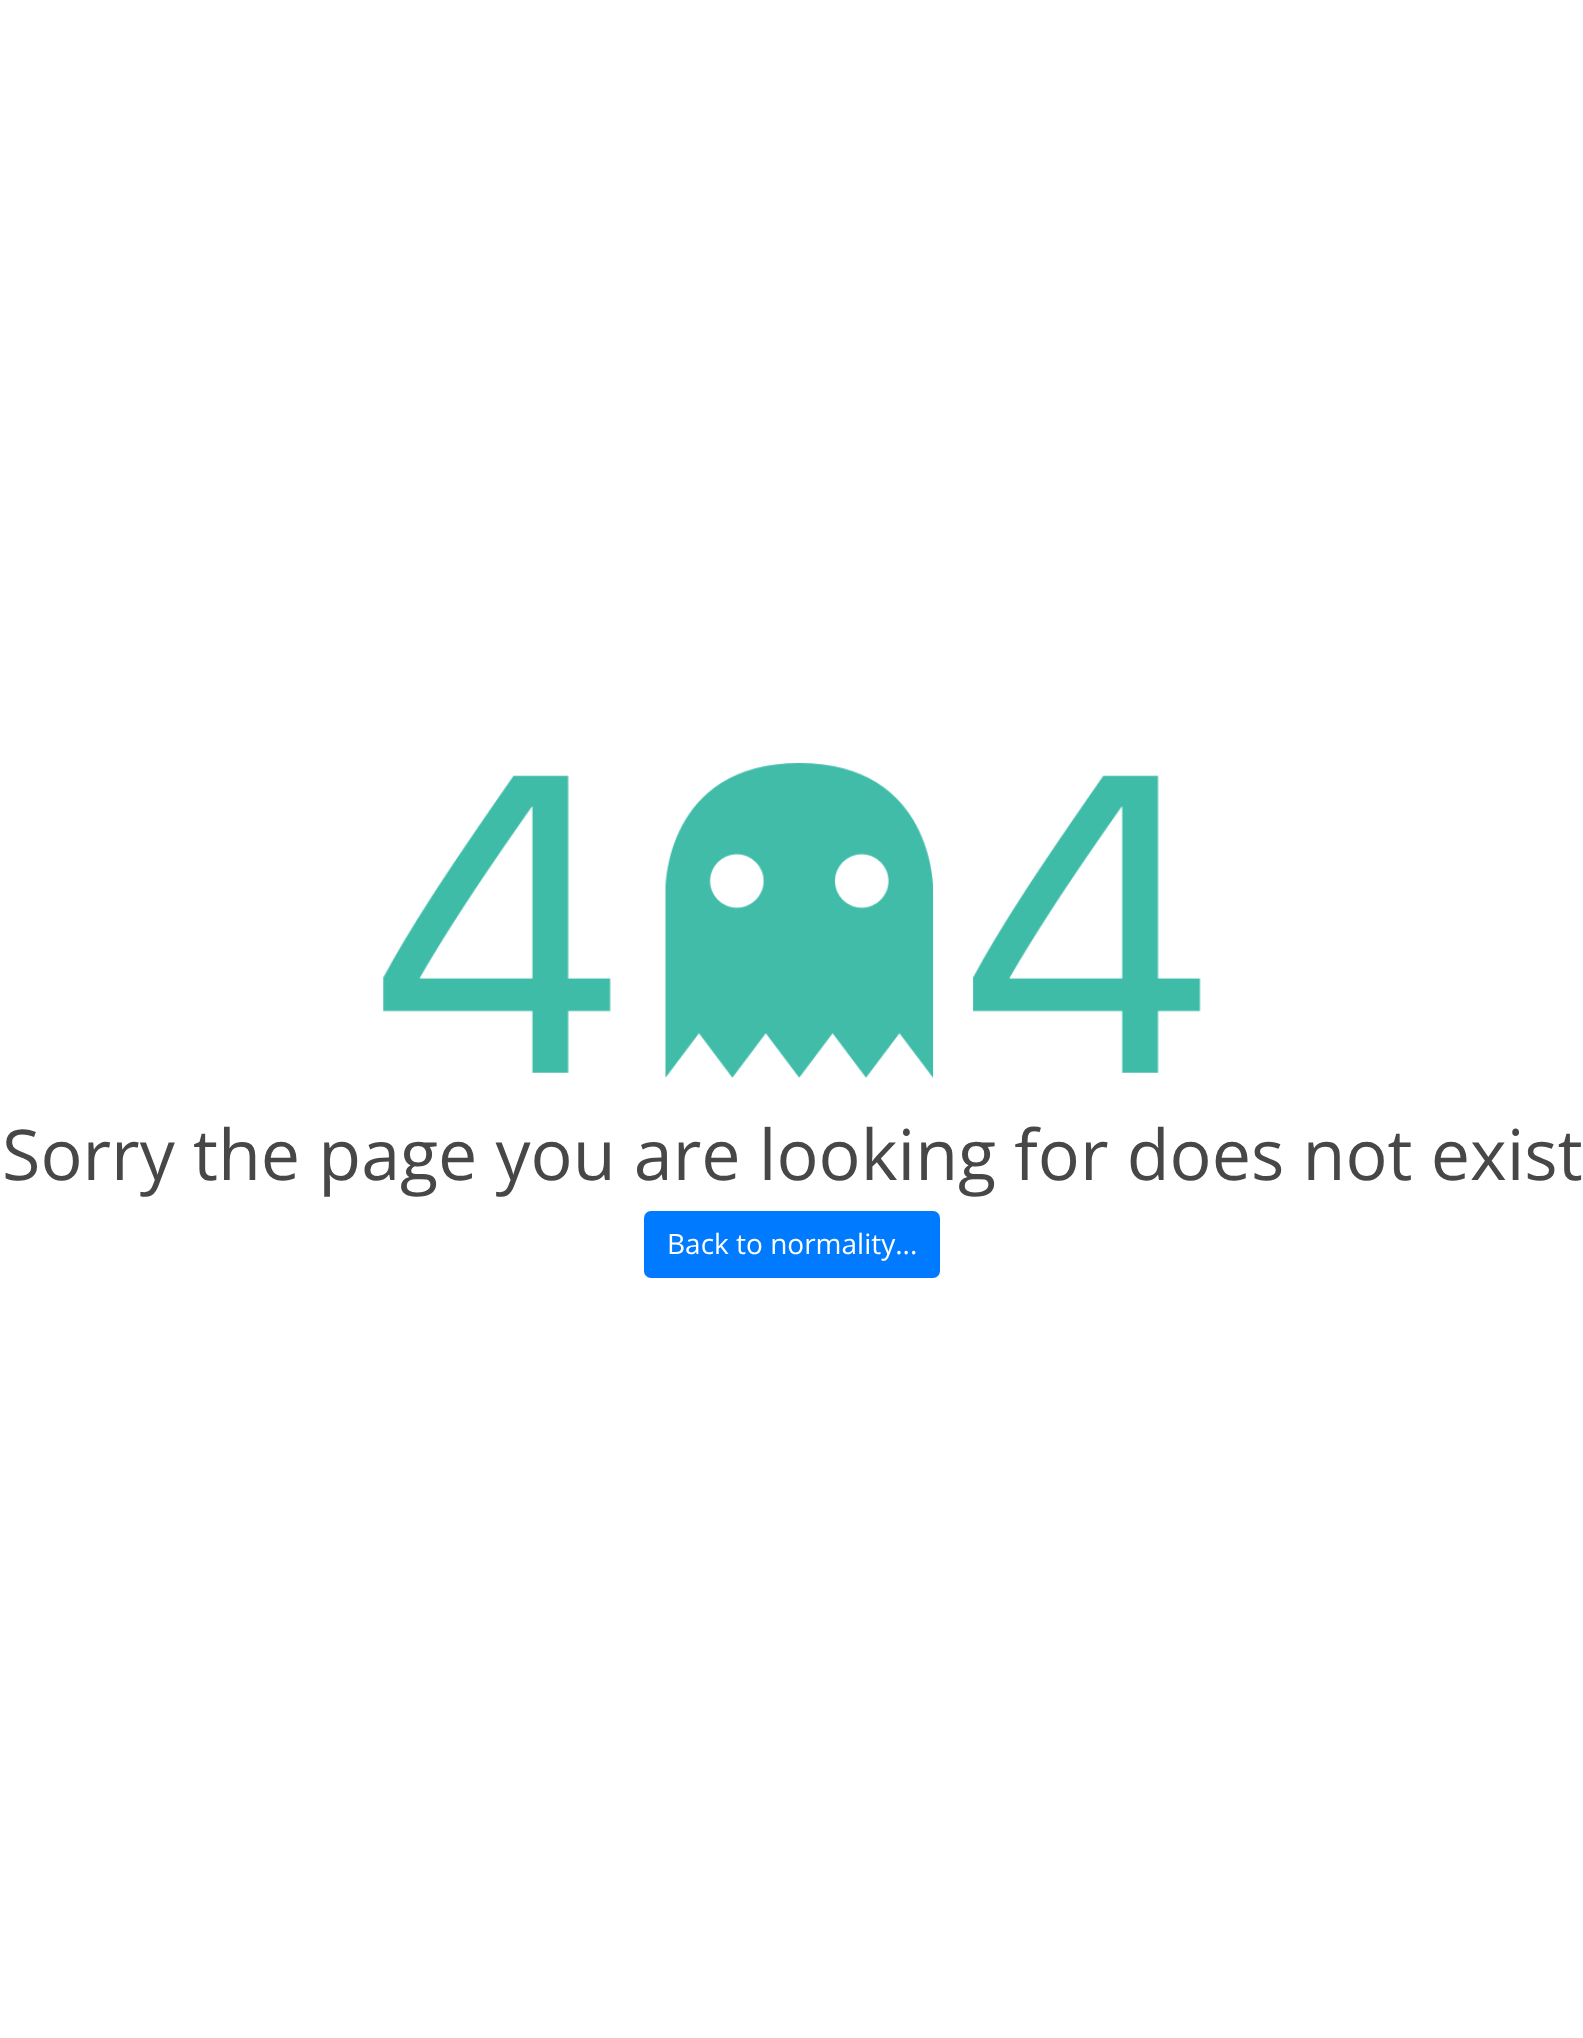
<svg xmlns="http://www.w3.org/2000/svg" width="1583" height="2038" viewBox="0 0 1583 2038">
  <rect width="100%" height="100%" fill="#ffffff"/>
  <image x="383" y="763" width="818" height="315" href="img1.png"/>
  <text x="2" y="1180" font-family="Open Sans" font-size="70" fill="#474747">Sorry the page you are looking for does not exist</text>
  <rect x="645" y="1212" width="294" height="65" rx="6" fill="#007bff" stroke="#007bff" stroke-width="2"/>
  <text x="667" y="1254" font-family="Open Sans" font-size="28" fill="#ffffff">Back to normality...</text>
</svg>
